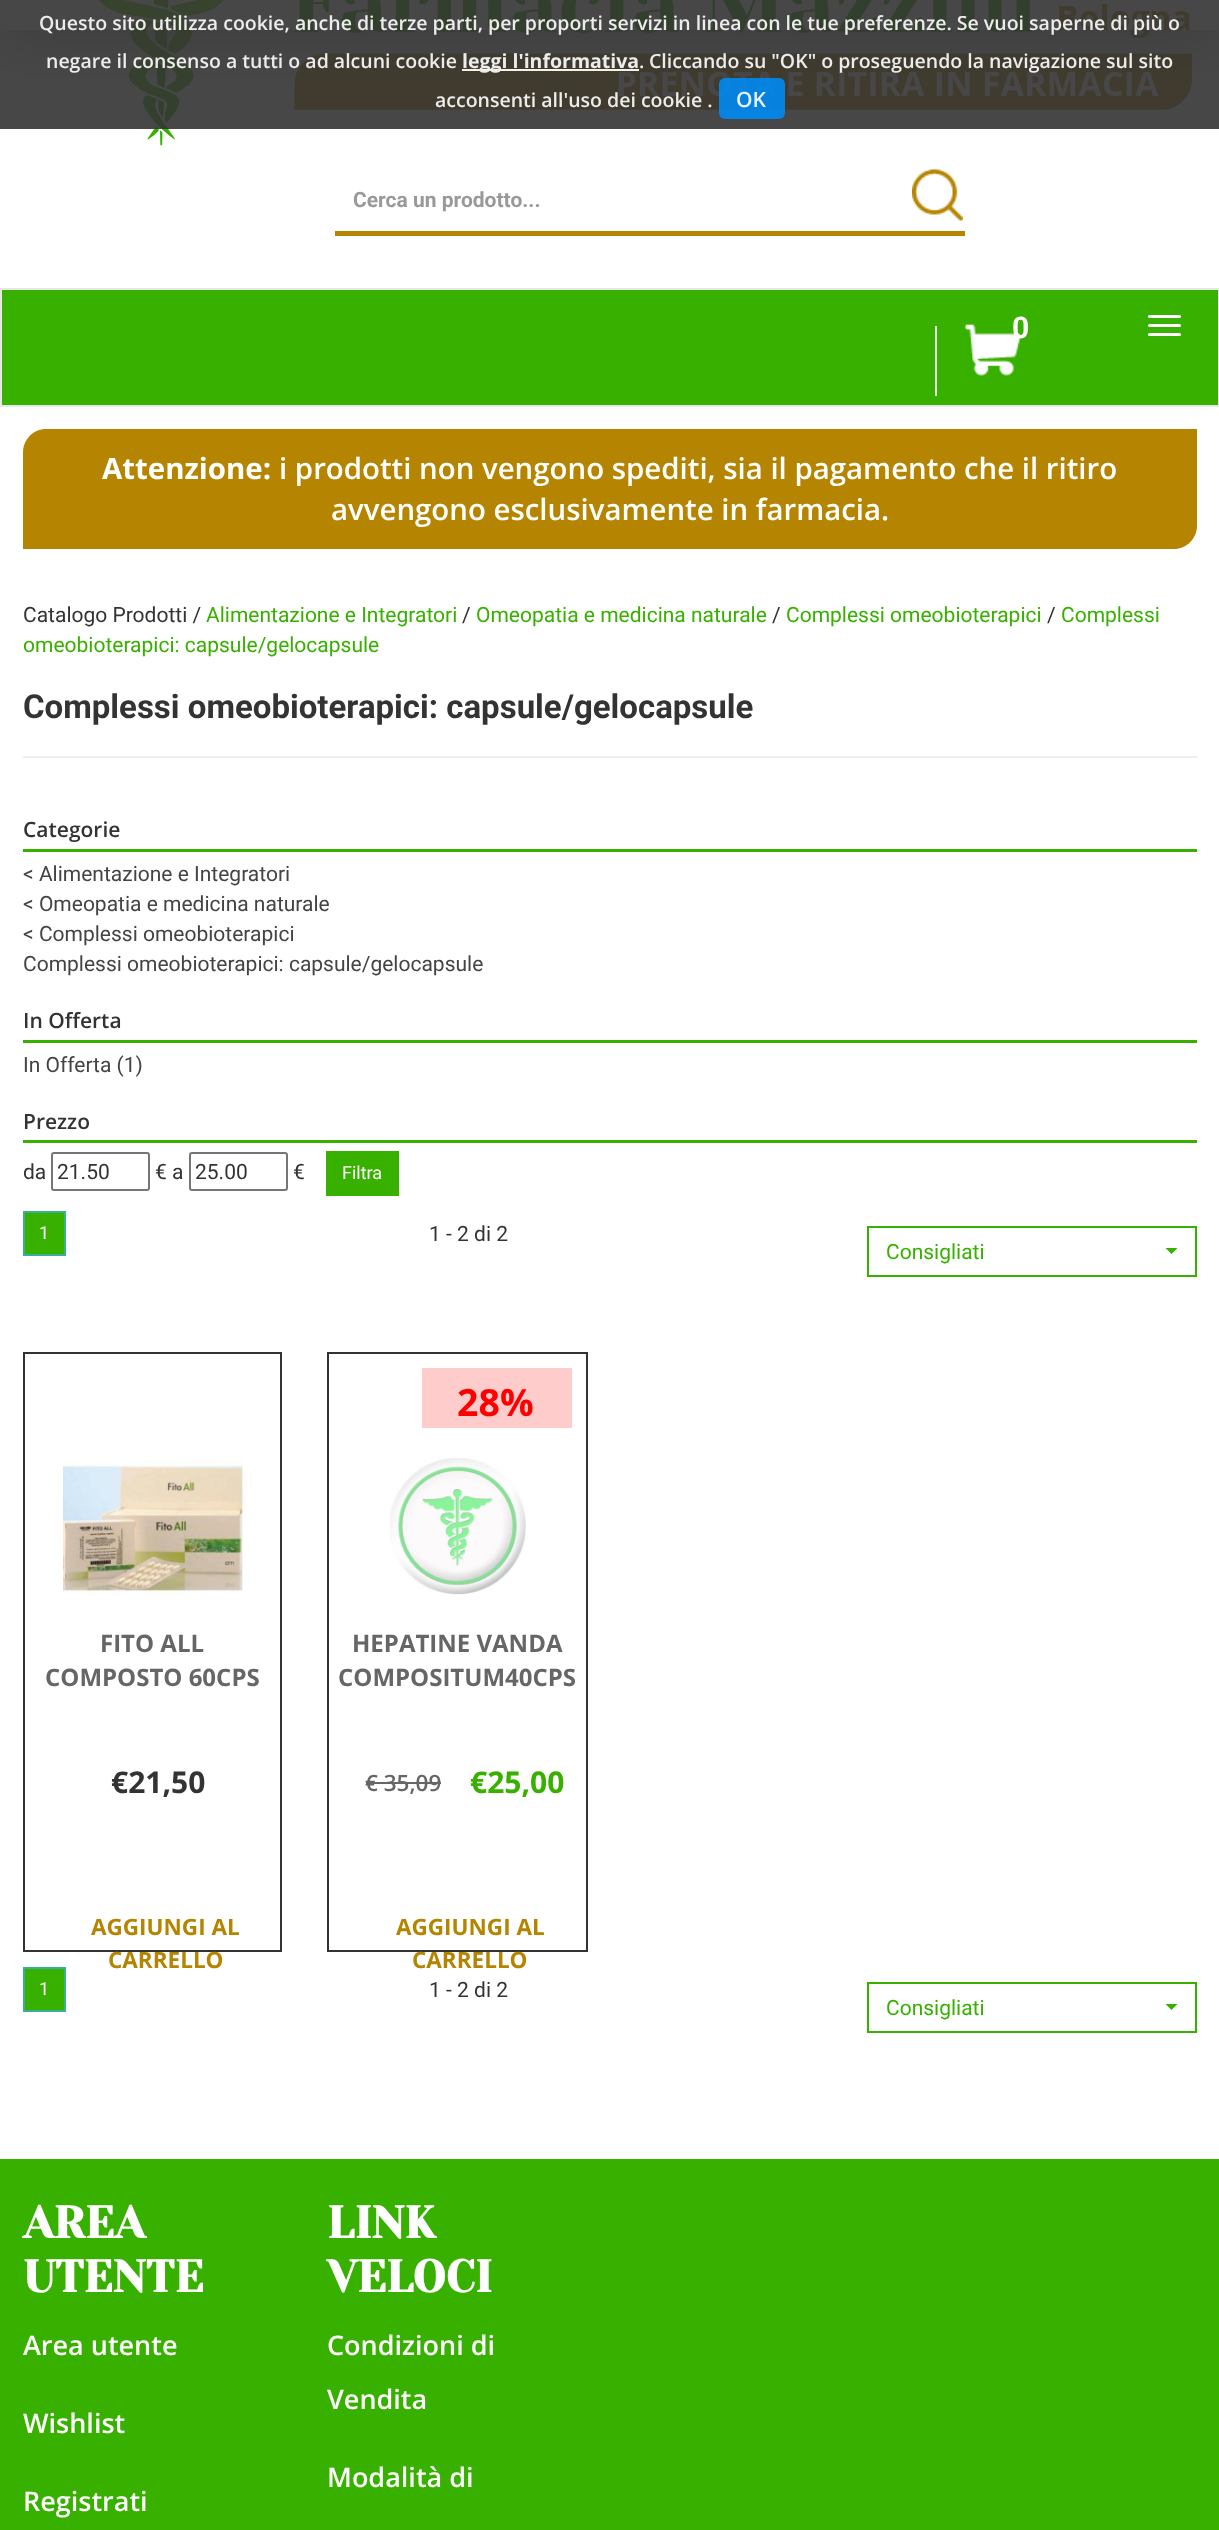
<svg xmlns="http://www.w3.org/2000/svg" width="1219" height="2530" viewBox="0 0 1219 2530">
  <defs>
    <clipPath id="clip1"><rect x="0" y="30" width="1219" height="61"/></clipPath>
    <filter id="blur1" x="-50%" y="-200%" width="200%" height="500%"><feGaussianBlur stdDeviation="30"/></filter>
  </defs>
  <rect width="100%" height="100%" fill="#ffffff"/>
  <image x="99" y="0" width="1093" height="146" href="img1.png"/>
  <g clip-path="url(#clip1)">
    <rect x="0" y="0" width="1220" height="30" fill="#444444" filter="url(#blur1)"/>
  </g>
  <rect x="0" y="0" width="1219" height="129" fill="#333333" fill-opacity="0.9"/>
  <text x="39" y="30" font-family="Open Sans" font-size="19.5" font-weight="600" fill="#ececec">Questo sito utilizza cookie, anche di terze parti, per proporti servizi in linea con le tue preferenze. Se vuoi saperne di più o</text>
  <text x="46" y="68" font-family="Open Sans" font-size="19.5" font-weight="600" fill="#ececec">negare il consenso a tutti o ad alcuni cookie</text>
  <rect x="462" y="69" width="177" height="2" fill="#f7f2e6"/>
  <text x="462" y="68" font-family="Open Sans" font-size="19.5" font-weight="bold" fill="#ececec">leggi l'informativa</text>
  <text x="639" y="68" font-family="Open Sans" font-size="19.5" font-weight="600" fill="#f7f2e6">.</text>
  <text x="649" y="68" font-family="Open Sans" font-size="19.5" font-weight="600" fill="#ececec">Cliccando su "OK" o proseguendo la navigazione sul sito</text>
  <text x="435" y="107" font-family="Open Sans" font-size="19.5" font-weight="600" fill="#ececec">acconsenti all'uso dei cookie .</text>
  <rect x="719" y="78" width="66" height="41" rx="6" fill="#0089f2" fill-opacity="0.9"/>
  <text x="736" y="107" font-family="Open Sans" font-size="21" font-weight="600" fill="#e6f2fc">OK</text>
  <rect x="335" y="231" width="630" height="5" fill="#b58502"/>
  <text x="353" y="207" font-family="Roboto" font-size="21" font-weight="bold" fill="#999999">Cerca un prodotto...</text>
  <image x="912" y="169" width="51" height="52" href="img2.png"/>
  <rect x="1" y="289" width="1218" height="117" fill="#38b000" stroke="#e7e7e7" stroke-width="2"/>
  <image x="965" y="324" width="56" height="52" href="img3.png"/>
  <rect x="935" y="326" width="2" height="70" fill="#ebebeb"/>
  <text x="1012" y="338" font-family="Roboto" font-size="30" font-weight="bold" fill="#ffffff">0</text>
  <rect x="1148" y="315" width="33" height="3" rx="1.5" fill="#ffffff"/>
  <rect x="1148" y="324" width="33" height="3" rx="1.5" fill="#ffffff"/>
  <rect x="1148" y="333" width="33" height="3" rx="1.5" fill="#ffffff"/>
  <path d="M46 429H1197V526C1197 538.5 1186.5 549 1174 549H23V452C23 439.5 33.5 429 46 429Z" fill="#b58502"/>
  <text x="102" y="479" font-family="Open Sans" font-size="29.4" font-weight="bold" fill="#ffffff">Attenzione:</text>
  <text x="279" y="479" font-family="Open Sans" font-size="29.4" font-weight="600" fill="#ffffff">i prodotti non vengono spediti, sia il pagamento che il ritiro</text>
  <text x="331" y="520" font-family="Open Sans" font-size="29.4" font-weight="600" fill="#ffffff">avvengono esclusivamente in farmacia.</text>
  <text x="23" y="622" font-family="Roboto" font-size="21" fill="#333333">Catalogo Prodotti /</text>
  <text x="206" y="622" font-family="Roboto" font-size="21" fill="#38b000">Alimentazione e Integratori</text>
  <text x="462" y="622" font-family="Roboto" font-size="21" fill="#333333">/</text>
  <text x="476" y="622" font-family="Roboto" font-size="21" fill="#38b000">Omeopatia e medicina naturale</text>
  <text x="772" y="622" font-family="Roboto" font-size="21" fill="#333333">/</text>
  <text x="786" y="622" font-family="Roboto" font-size="21" fill="#38b000">Complessi omeobioterapici</text>
  <text x="1047" y="622" font-family="Roboto" font-size="21" fill="#333333">/</text>
  <text x="1061" y="622" font-family="Roboto" font-size="21" fill="#38b000">Complessi</text>
  <text x="23" y="652" font-family="Roboto" font-size="21" fill="#38b000">omeobioterapici: capsule/gelocapsule</text>
  <text x="23" y="718" font-family="Roboto" font-size="33" font-weight="bold" fill="#333333">Complessi omeobioterapici: capsule/gelocapsule</text>
  <rect x="23" y="756" width="1174" height="2" fill="#eeeeee"/>
  <text x="23" y="837" font-family="Open Sans" font-size="21" font-weight="600" fill="#333333">Categorie</text>
  <rect x="23" y="849" width="1174" height="3" fill="#38b000"/>
  <text x="23" y="881" font-family="Roboto" font-size="21" fill="#444444">&lt; Alimentazione e Integratori</text>
  <text x="23" y="911" font-family="Roboto" font-size="21" fill="#444444">&lt; Omeopatia e medicina naturale</text>
  <text x="23" y="941" font-family="Roboto" font-size="21" fill="#444444">&lt; Complessi omeobioterapici</text>
  <text x="23" y="971" font-family="Roboto" font-size="21" fill="#444444">Complessi omeobioterapici: capsule/gelocapsule</text>
  <text x="23" y="1028" font-family="Open Sans" font-size="21" font-weight="600" fill="#333333">In Offerta</text>
  <rect x="23" y="1040" width="1174" height="3" fill="#38b000"/>
  <text x="23" y="1072" font-family="Roboto" font-size="21" fill="#444444">In Offerta (1)</text>
  <text x="23" y="1129" font-family="Open Sans" font-size="21" font-weight="600" fill="#333333">Prezzo</text>
  <rect x="23" y="1140" width="1174" height="3" fill="#38b000"/>
  <text x="23" y="1179" font-family="Roboto" font-size="21" fill="#333333">da</text>
  <rect x="52" y="1153" width="97" height="37" rx="2" fill="none" stroke="#767676" stroke-width="2"/>
  <text x="57" y="1179" font-family="Roboto" font-size="21" fill="#333333">21.50</text>
  <text x="155" y="1179" font-family="Roboto" font-size="21" fill="#333333">€ a</text>
  <rect x="190" y="1153" width="97" height="37" rx="2" fill="none" stroke="#767676" stroke-width="2"/>
  <text x="195" y="1179" font-family="Roboto" font-size="21" fill="#333333">25.00</text>
  <text x="293" y="1179" font-family="Roboto" font-size="21" fill="#333333">€</text>
  <rect x="326" y="1151" width="73" height="45" fill="#38b000"/>
  <text x="342" y="1179" font-family="Roboto" font-size="18" fill="#ffffff">Filtra</text>
  <rect x="24" y="1212" width="41" height="43" fill="#38b000" stroke="#38b098" stroke-width="2"/>
  <text x="39" y="1239" font-family="Roboto" font-size="18" fill="#ffffff">1</text>
  <text x="429" y="1241" font-family="Roboto" font-size="21" fill="#333333">1 - 2 di 2</text>
  <rect x="868" y="1227" width="328" height="49" fill="none" stroke="#38b000" stroke-width="2"/>
  <text x="886" y="1259" font-family="Roboto" font-size="21" fill="#38b000">Consigliati</text>
  <path d="M1165.5 1248H1177.5L1171.5 1254Z" fill="#38b000"/>
  <rect x="24" y="1353" width="257" height="598" fill="none" stroke="#333333" stroke-width="2"/>
  <image x="63" y="1460" width="180" height="137" href="img4.png"/>
  <text x="100" y="1652" font-family="Open Sans" font-size="24" font-weight="bold" fill="#666666">FITO ALL</text>
  <text x="45" y="1686" font-family="Open Sans" font-size="24" font-weight="bold" fill="#666666">COMPOSTO 60CPS</text>
  <text x="111" y="1793" font-family="Open Sans" font-size="30" font-weight="bold" fill="#333333">€21,50</text>
  <text x="91" y="1935" font-family="Open Sans" font-size="22.5" font-weight="bold" fill="#b58502">AGGIUNGI AL</text>
  <text x="108" y="1968" font-family="Open Sans" font-size="22.5" font-weight="bold" fill="#b58502">CARRELLO</text>
  <rect x="328" y="1353" width="259" height="598" fill="none" stroke="#333333" stroke-width="2"/>
  <rect x="422" y="1368" width="150" height="60" fill="#ffcccc"/>
  <text x="457" y="1416" font-family="Open Sans" font-size="37.5" font-weight="bold" fill="#ff0000">28%</text>
  <text x="365" y="1791" font-family="Open Sans" font-size="22.5" font-weight="600" fill="#666666">€ 35,09</text>
  <rect x="366" y="1782" width="75" height="2" fill="#666666"/>
  <text x="470" y="1793" font-family="Open Sans" font-size="30" font-weight="bold" fill="#38b000">€25,00</text>
  <text x="352" y="1652" font-family="Open Sans" font-size="24" font-weight="bold" fill="#666666">HEPATINE VANDA</text>
  <text x="338" y="1686" font-family="Open Sans" font-size="24" font-weight="bold" fill="#666666">COMPOSITUM40CPS</text>
  <image x="389" y="1458" width="137" height="137" href="img5.png"/>
  <text x="396" y="1935" font-family="Open Sans" font-size="22.5" font-weight="bold" fill="#b58502">AGGIUNGI AL</text>
  <text x="412" y="1968" font-family="Open Sans" font-size="22.5" font-weight="bold" fill="#b58502">CARRELLO</text>
  <rect x="24" y="1968" width="41" height="43" fill="#38b000" stroke="#38b098" stroke-width="2"/>
  <text x="39" y="1995" font-family="Roboto" font-size="18" fill="#ffffff">1</text>
  <text x="429" y="1997" font-family="Roboto" font-size="21" fill="#333333">1 - 2 di 2</text>
  <rect x="868" y="1983" width="328" height="49" fill="none" stroke="#38b000" stroke-width="2"/>
  <text x="886" y="2015" font-family="Roboto" font-size="21" fill="#38b000">Consigliati</text>
  <path d="M1165.5 2004H1177.5L1171.5 2010Z" fill="#38b000"/>
  <rect x="0" y="2159" width="1219" height="371" fill="#38b000"/>
  <text x="23" y="2238" font-family="Yeseva One" font-size="45" font-weight="bold" fill="#ffffff">AREA</text>
  <text x="23" y="2292" font-family="Yeseva One" font-size="45" font-weight="bold" fill="#ffffff">UTENTE</text>
  <text x="23" y="2355" font-family="Open Sans" font-size="27" font-weight="600" fill="#ffffff">Area utente</text>
  <text x="23" y="2433" font-family="Open Sans" font-size="27" font-weight="600" fill="#ffffff">Wishlist</text>
  <text x="23" y="2511" font-family="Open Sans" font-size="27" font-weight="600" fill="#ffffff">Registrati</text>
  <text x="327" y="2238" font-family="Yeseva One" font-size="45" font-weight="bold" fill="#ffffff">LINK</text>
  <text x="327" y="2292" font-family="Yeseva One" font-size="45" font-weight="bold" fill="#ffffff">VELOCI</text>
  <text x="327" y="2355" font-family="Open Sans" font-size="27" font-weight="600" fill="#ffffff">Condizioni di</text>
  <text x="327" y="2409" font-family="Open Sans" font-size="27" font-weight="600" fill="#ffffff">Vendita</text>
  <text x="327" y="2487" font-family="Open Sans" font-size="27" font-weight="600" fill="#ffffff">Modalità di</text>
</svg>
